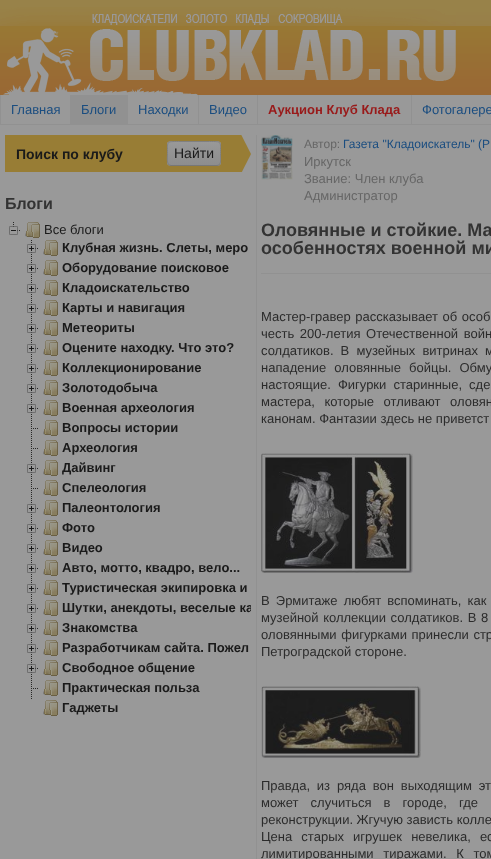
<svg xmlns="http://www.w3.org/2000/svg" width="491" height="859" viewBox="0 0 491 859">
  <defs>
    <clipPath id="clip1"><rect x="167" y="141" width="54" height="25" rx="4"/></clipPath>
    <linearGradient id="g1" gradientUnits="userSpaceOnUse" x1="194" y1="142" x2="194" y2="165"><stop offset="0" stop-color="#999999"/><stop offset="1" stop-color="#8d8d8d"/></linearGradient>
    <clipPath id="clip2"><rect x="221" y="135" width="30" height="37"/></clipPath>
    <clipPath id="clip3"><rect x="5" y="135" width="246" height="614"/></clipPath>
  </defs>
  <rect width="100%" height="100%" fill="#999999"/>
  <image x="0" y="0" width="491" height="95" href="img1.png"/>
  <image x="0" y="7" width="456" height="88" href="img2.png"/>
  <rect x="0" y="124" width="491" height="1" fill="#919191"/>
  <rect x="0" y="95" width="1" height="29" fill="#919191"/>
  <rect x="70" y="95" width="58" height="29" fill="#919191"/>
  <text x="11" y="114" font-family="Liberation Sans" font-size="13" fill="#1a4d80">Главная</text>
  <text x="81" y="114" font-family="Liberation Sans" font-size="13" fill="#1a4d80">Блоги</text>
  <rect x="198" y="95" width="1" height="29" fill="#919191"/>
  <text x="138" y="114" font-family="Liberation Sans" font-size="13" fill="#1a4d80">Находки</text>
  <rect x="257" y="95" width="1" height="29" fill="#919191"/>
  <text x="209" y="114" font-family="Liberation Sans" font-size="13" fill="#1a4d80">Видео</text>
  <rect x="411" y="95" width="1" height="29" fill="#919191"/>
  <text x="268" y="114" font-family="Liberation Sans" font-size="13" font-weight="bold" fill="#991a1a">Аукцион Клуб Клада</text>
  <text x="422" y="114" font-family="Liberation Sans" font-size="13" fill="#1a4d80">Фотогалере</text>
  <rect x="256" y="135" width="1" height="724" fill="#919191"/>
  <rect x="5" y="135" width="216" height="37" fill="#987d35"/>
  <text x="16" y="159" font-family="Liberation Sans" font-size="14" font-weight="bold" fill="#1a1a1a">Поиск по клубу</text>
  <rect x="167" y="141" width="54" height="25" rx="4" fill="#949494"/>
  <g clip-path="url(#clip1)">
    <rect x="167" y="142" width="54" height="23" fill="url(#g1)"/>
  </g>
  <path d="M219.5 164.5C219 165 218 165.5 217 165.5H171C170 165.5 169 165 168.5 164.5" fill="none" stroke="#777777"/>
  <path d="M168.5 164.5C166.5 162 167.5 156 167.5 153.5C167.5 141 166 141.5 178.5 141.5H209.5C222 141.5 220.5 141 220.5 153.5C220.5 156 221.5 162 219.5 164.5" fill="none" stroke="#808080"/>
  <text x="174" y="158" font-family="Liberation Sans" font-size="14" fill="#1a1a1a">Найти</text>
  <g clip-path="url(#clip2)">
    <path d="M221 213V95L251 154Z" fill="#987d35"/>
  </g>
  <text x="5" y="209" font-family="Liberation Sans" font-size="16" font-weight="bold" fill="#333333">Блоги</text>
  <image x="9" y="222" width="11" height="13" href="img3.png"/>
  <image x="25" y="222" width="15" height="16" href="img4.png"/>
  <text x="44" y="234" font-family="Liberation Sans" font-size="13" fill="#1a1a1a">Все блоги</text>
  <image x="31" y="240" width="1" height="19" href="img5.png"/>
  <image x="27" y="244" width="11" height="9" href="img6.png"/>
  <image x="43" y="240" width="15" height="16" href="img4.png"/>
  <text x="62" y="252" font-family="Liberation Sans" font-size="13" font-weight="bold" fill="#1a1a1a">Клубная жизнь. Слеты, меро</text>
  <image x="31" y="260" width="1" height="19" href="img5.png"/>
  <image x="27" y="264" width="11" height="9" href="img6.png"/>
  <image x="43" y="260" width="15" height="16" href="img4.png"/>
  <text x="62" y="272" font-family="Liberation Sans" font-size="13" font-weight="bold" fill="#1a1a1a">Оборудование поисковое</text>
  <image x="31" y="280" width="1" height="19" href="img5.png"/>
  <image x="27" y="284" width="11" height="9" href="img6.png"/>
  <image x="43" y="280" width="15" height="16" href="img4.png"/>
  <text x="62" y="292" font-family="Liberation Sans" font-size="13" font-weight="bold" fill="#1a1a1a">Кладоискательство</text>
  <image x="31" y="300" width="1" height="19" href="img5.png"/>
  <image x="27" y="304" width="11" height="9" href="img6.png"/>
  <image x="43" y="300" width="15" height="16" href="img4.png"/>
  <text x="62" y="312" font-family="Liberation Sans" font-size="13" font-weight="bold" fill="#1a1a1a">Карты и навигация</text>
  <image x="31" y="320" width="1" height="19" href="img5.png"/>
  <image x="27" y="324" width="11" height="9" href="img6.png"/>
  <image x="43" y="320" width="15" height="16" href="img4.png"/>
  <text x="62" y="332" font-family="Liberation Sans" font-size="13" font-weight="bold" fill="#1a1a1a">Метеориты</text>
  <image x="31" y="340" width="1" height="19" href="img5.png"/>
  <image x="27" y="344" width="11" height="9" href="img6.png"/>
  <image x="43" y="340" width="15" height="16" href="img4.png"/>
  <text x="62" y="352" font-family="Liberation Sans" font-size="13" font-weight="bold" fill="#1a1a1a">Оцените находку. Что это?</text>
  <image x="31" y="360" width="1" height="19" href="img5.png"/>
  <image x="27" y="364" width="11" height="9" href="img6.png"/>
  <image x="43" y="360" width="15" height="16" href="img4.png"/>
  <text x="62" y="372" font-family="Liberation Sans" font-size="13" font-weight="bold" fill="#1a1a1a">Коллекционирование</text>
  <image x="31" y="380" width="1" height="19" href="img5.png"/>
  <image x="27" y="384" width="11" height="9" href="img6.png"/>
  <image x="43" y="380" width="15" height="16" href="img4.png"/>
  <text x="62" y="392" font-family="Liberation Sans" font-size="13" font-weight="bold" fill="#1a1a1a">Золотодобыча</text>
  <image x="31" y="400" width="1" height="19" href="img5.png"/>
  <image x="27" y="404" width="11" height="9" href="img6.png"/>
  <image x="43" y="400" width="15" height="16" href="img4.png"/>
  <text x="62" y="412" font-family="Liberation Sans" font-size="13" font-weight="bold" fill="#1a1a1a">Военная археология</text>
  <image x="31" y="420" width="1" height="19" href="img5.png"/>
  <image x="33" y="428" width="5" height="1" href="img7.png"/>
  <image x="43" y="420" width="15" height="16" href="img4.png"/>
  <text x="62" y="432" font-family="Liberation Sans" font-size="13" font-weight="bold" fill="#1a1a1a">Вопросы истории</text>
  <image x="31" y="440" width="1" height="19" href="img5.png"/>
  <image x="33" y="448" width="5" height="1" href="img7.png"/>
  <image x="43" y="440" width="15" height="16" href="img4.png"/>
  <text x="62" y="452" font-family="Liberation Sans" font-size="13" font-weight="bold" fill="#1a1a1a">Археология</text>
  <image x="31" y="460" width="1" height="19" href="img5.png"/>
  <image x="27" y="464" width="11" height="9" href="img6.png"/>
  <image x="43" y="460" width="15" height="16" href="img4.png"/>
  <text x="62" y="472" font-family="Liberation Sans" font-size="13" font-weight="bold" fill="#1a1a1a">Дайвинг</text>
  <image x="31" y="480" width="1" height="19" href="img5.png"/>
  <image x="33" y="488" width="5" height="1" href="img7.png"/>
  <image x="43" y="480" width="15" height="16" href="img4.png"/>
  <text x="62" y="492" font-family="Liberation Sans" font-size="13" font-weight="bold" fill="#1a1a1a">Спелеология</text>
  <image x="31" y="500" width="1" height="19" href="img5.png"/>
  <image x="27" y="504" width="11" height="9" href="img6.png"/>
  <image x="43" y="500" width="15" height="16" href="img4.png"/>
  <text x="62" y="512" font-family="Liberation Sans" font-size="13" font-weight="bold" fill="#1a1a1a">Палеонтология</text>
  <image x="31" y="520" width="1" height="19" href="img5.png"/>
  <image x="27" y="524" width="11" height="9" href="img6.png"/>
  <image x="43" y="520" width="15" height="16" href="img4.png"/>
  <text x="62" y="532" font-family="Liberation Sans" font-size="13" font-weight="bold" fill="#1a1a1a">Фото</text>
  <image x="31" y="540" width="1" height="19" href="img5.png"/>
  <image x="27" y="544" width="11" height="9" href="img6.png"/>
  <image x="43" y="540" width="15" height="16" href="img4.png"/>
  <text x="62" y="552" font-family="Liberation Sans" font-size="13" font-weight="bold" fill="#1a1a1a">Видео</text>
  <image x="31" y="560" width="1" height="19" href="img5.png"/>
  <image x="27" y="564" width="11" height="9" href="img6.png"/>
  <image x="43" y="560" width="15" height="16" href="img4.png"/>
  <text x="62" y="572" font-family="Liberation Sans" font-size="13" font-weight="bold" fill="#1a1a1a">Авто, мотто, квадро, вело...</text>
  <image x="31" y="580" width="1" height="19" href="img5.png"/>
  <image x="27" y="584" width="11" height="9" href="img6.png"/>
  <image x="43" y="580" width="15" height="16" href="img4.png"/>
  <text x="62" y="592" font-family="Liberation Sans" font-size="13" font-weight="bold" fill="#1a1a1a">Туристическая экипировка и</text>
  <image x="31" y="600" width="1" height="19" href="img5.png"/>
  <image x="27" y="604" width="11" height="9" href="img6.png"/>
  <image x="43" y="600" width="15" height="16" href="img4.png"/>
  <g clip-path="url(#clip3)">
    <text x="62" y="612" font-family="Liberation Sans" font-size="13" font-weight="bold" fill="#1a1a1a">Шутки, анекдоты, веселые ка</text>
  </g>
  <image x="31" y="620" width="1" height="19" href="img5.png"/>
  <image x="27" y="624" width="11" height="9" href="img6.png"/>
  <image x="43" y="620" width="15" height="16" href="img4.png"/>
  <text x="62" y="632" font-family="Liberation Sans" font-size="13" font-weight="bold" fill="#1a1a1a">Знакомства</text>
  <image x="31" y="640" width="1" height="19" href="img5.png"/>
  <image x="27" y="644" width="11" height="9" href="img6.png"/>
  <image x="43" y="640" width="15" height="16" href="img4.png"/>
  <text x="62" y="652" font-family="Liberation Sans" font-size="13" font-weight="bold" fill="#1a1a1a">Разработчикам сайта. Пожел</text>
  <image x="31" y="660" width="1" height="19" href="img5.png"/>
  <image x="27" y="664" width="11" height="9" href="img6.png"/>
  <image x="43" y="660" width="15" height="16" href="img4.png"/>
  <text x="62" y="672" font-family="Liberation Sans" font-size="13" font-weight="bold" fill="#1a1a1a">Свободное общение</text>
  <image x="31" y="680" width="1" height="19" href="img5.png"/>
  <image x="33" y="688" width="5" height="1" href="img7.png"/>
  <image x="43" y="680" width="15" height="16" href="img4.png"/>
  <text x="62" y="692" font-family="Liberation Sans" font-size="13" font-weight="bold" fill="#1a1a1a">Практическая польза</text>
  <image x="43" y="700" width="15" height="16" href="img4.png"/>
  <text x="62" y="712" font-family="Liberation Sans" font-size="13" font-weight="bold" fill="#1a1a1a">Гаджеты</text>
  <image x="261" y="135" width="32" height="45" href="img8.png"/>
  <text x="304" y="148" font-family="Liberation Sans" font-size="12" fill="#666666">Автор:</text>
  <text x="343" y="148" font-family="Liberation Sans" font-size="12" fill="#1a4d80">Газета "Кладоискатель" (Р</text>
  <text x="304" y="166" font-family="Liberation Sans" font-size="13" fill="#666666">Иркутск</text>
  <text x="304" y="183" font-family="Liberation Sans" font-size="13" fill="#666666">Звание: Член клуба</text>
  <text x="304" y="200" font-family="Liberation Sans" font-size="13" fill="#666666">Администратор</text>
  <rect x="261" y="273" width="230" height="1" fill="#919191"/>
  <text x="261" y="236" font-family="Liberation Sans" font-size="18" font-weight="bold" fill="#333333">Оловянные и стойкие. Ма</text>
  <text x="261" y="254" font-family="Liberation Sans" font-size="18" font-weight="bold" fill="#333333">особенностях военной ми</text>
  <text x="261" y="321" word-spacing="1" font-family="Liberation Sans" font-size="13" fill="#2b2b2b">Мастер-гравер рассказывает об особ</text>
  <text x="261" y="338" word-spacing="2" font-family="Liberation Sans" font-size="13" fill="#2b2b2b">честь 200-летия Отечественной войн</text>
  <text x="261" y="355" word-spacing="3.5" font-family="Liberation Sans" font-size="13" fill="#2b2b2b">солдатиков. В музейных витринах м</text>
  <text x="261" y="372" word-spacing="4.5" font-family="Liberation Sans" font-size="13" fill="#2b2b2b">нападение оловянные бойцы. Обму</text>
  <text x="261" y="389" word-spacing="3.5" font-family="Liberation Sans" font-size="13" fill="#2b2b2b">настоящие. Фигурки старинные, сде</text>
  <text x="261" y="406" word-spacing="6" font-family="Liberation Sans" font-size="13" fill="#2b2b2b">мастера, которые отливают оловян</text>
  <text x="261" y="423" font-family="Liberation Sans" font-size="13" fill="#2b2b2b">канонам. Фантазии здесь не приветст</text>
  <image x="261" y="453" width="152" height="120" href="img9.png"/>
  <text x="261" y="605" word-spacing="2.5" font-family="Liberation Sans" font-size="13" fill="#2b2b2b">В Эрмитаже любят вспоминать, как</text>
  <text x="261" y="622" word-spacing="1" font-family="Liberation Sans" font-size="13" fill="#2b2b2b">музейной коллекции солдатиков. В 8</text>
  <text x="261" y="639" word-spacing="1" font-family="Liberation Sans" font-size="13" fill="#2b2b2b">оловянными фигурками принесли стр</text>
  <text x="261" y="656" font-family="Liberation Sans" font-size="13" fill="#2b2b2b">Петроградской стороне.</text>
  <image x="261" y="686" width="160" height="72" href="img10.png"/>
  <text x="261" y="790" word-spacing="3.25" font-family="Liberation Sans" font-size="13" fill="#2b2b2b">Правда, из ряда вон выходящим эт</text>
  <text x="261" y="807" word-spacing="8.5" font-family="Liberation Sans" font-size="13" fill="#2b2b2b">может случиться в городе, где</text>
  <text x="261" y="824" font-family="Liberation Sans" font-size="13" fill="#2b2b2b">реконструкции. Жгучую зависть колле</text>
  <text x="261" y="841" word-spacing="5.5" font-family="Liberation Sans" font-size="13" fill="#2b2b2b">Цена старых игрушек невелика, ес</text>
  <text x="261" y="858" word-spacing="6" font-family="Liberation Sans" font-size="13" fill="#2b2b2b">лимитированными тиражами. К том</text>
</svg>
